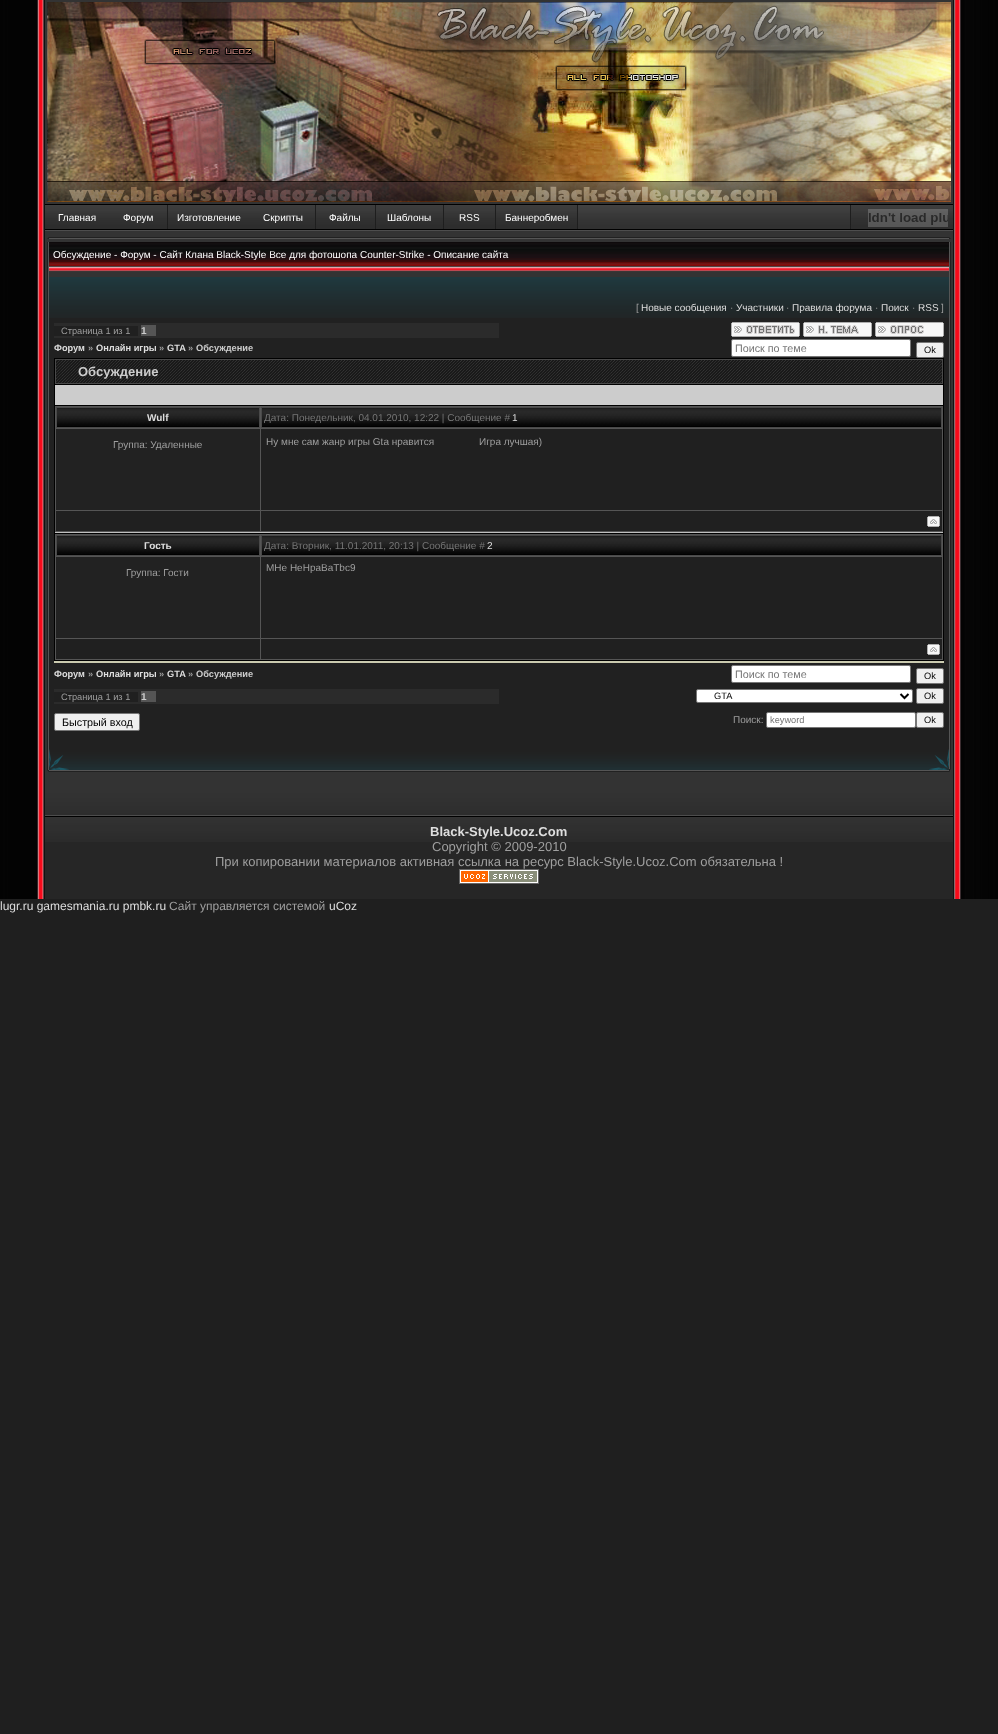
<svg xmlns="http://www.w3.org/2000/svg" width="998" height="1734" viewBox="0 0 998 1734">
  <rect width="100%" height="100%" fill="#1f1f1f"/>
  <image x="0" y="0" width="45" height="899" href="img1.png"/>
  <rect x="45" y="0" width="908" height="793" fill="#333333"/>
  <image x="47" y="2" width="904" height="200" href="img2.png"/>
  <image x="45" y="204" width="64" height="27" href="img3.png"/>
  <text x="58" y="221" font-family="Liberation Sans" font-size="10" fill="#ffffff">Главная</text>
  <image x="109" y="204" width="58" height="27" href="img4.png"/>
  <text x="123" y="221" font-family="Liberation Sans" font-size="10" fill="#ffffff">Форум</text>
  <image x="167" y="204" width="1" height="27" href="img5.png"/>
  <image x="168" y="204" width="82" height="27" href="img6.png"/>
  <text x="177" y="221" font-family="Liberation Sans" font-size="10" fill="#ffffff">Изготовление</text>
  <image x="250" y="204" width="65" height="27" href="img7.png"/>
  <text x="263" y="221" font-family="Liberation Sans" font-size="10" fill="#ffffff">Скрипты</text>
  <image x="315" y="204" width="1" height="27" href="img5.png"/>
  <image x="316" y="204" width="59" height="27" href="img8.png"/>
  <text x="329" y="221" font-family="Liberation Sans" font-size="10" fill="#ffffff">Файлы</text>
  <image x="375" y="204" width="1" height="27" href="img5.png"/>
  <image x="376" y="204" width="67" height="27" href="img9.png"/>
  <text x="387" y="221" font-family="Liberation Sans" font-size="10" fill="#ffffff">Шаблоны</text>
  <image x="443" y="204" width="1" height="27" href="img5.png"/>
  <image x="444" y="204" width="51" height="27" href="img10.png"/>
  <text x="459" y="221" font-family="Liberation Sans" font-size="10" fill="#ffffff">RSS</text>
  <image x="495" y="204" width="1" height="27" href="img5.png"/>
  <image x="496" y="204" width="81" height="27" href="img11.png"/>
  <text x="505" y="221" font-family="Liberation Sans" font-size="10" fill="#ffffff">Баннеробмен</text>
  <image x="577" y="204" width="1" height="27" href="img5.png"/>
  <image x="578" y="204" width="272" height="27" href="img12.png"/>
  <image x="850" y="204" width="1" height="27" href="img5.png"/>
  <image x="851" y="204" width="102" height="27" href="img13.png"/>
  <image x="868" y="209" width="80" height="18" href="img14.png"/>
  <image x="47" y="237" width="2" height="2" href="img15.png"/>
  <image x="49" y="237" width="900" height="2" href="img16.png"/>
  <image x="949" y="237" width="2" height="2" href="img17.png"/>
  <image x="47" y="242" width="2" height="24" href="img18.png"/>
  <image x="49" y="242" width="900" height="24" href="img19.png"/>
  <text x="53" y="258" font-family="Liberation Sans" font-size="10" fill="#ffffff">Обсуждение - Форум - Сайт Клана Black-Style Все для фотошопа Counter-Strike - Описание сайта</text>
  <image x="949" y="242" width="2" height="24" href="img20.png"/>
  <image x="47" y="266" width="2" height="11" href="img21.png"/>
  <image x="49" y="266" width="900" height="6" href="img22.png"/>
  <image x="949" y="266" width="2" height="11" href="img23.png"/>
  <image x="47" y="277" width="2" height="470" href="img24.png"/>
  <rect x="49" y="318" width="900" height="429" fill="#212121"/>
  <image x="49" y="277" width="900" height="41" href="img25.png"/>
  <text x="636" y="311" font-family="Liberation Sans" font-size="10" fill="#9f9f9f">[</text>
  <text x="641" y="311" font-family="Liberation Sans" font-size="10" fill="#dedede">Новые сообщения</text>
  <text x="730" y="311" font-family="Liberation Sans" font-size="10" fill="#9f9f9f">·</text>
  <text x="736" y="311" font-family="Liberation Sans" font-size="10" fill="#dedede">Участники</text>
  <text x="786" y="311" font-family="Liberation Sans" font-size="10" fill="#9f9f9f">·</text>
  <text x="792" y="311" font-family="Liberation Sans" font-size="10" fill="#dedede">Правила форума</text>
  <text x="875" y="311" font-family="Liberation Sans" font-size="10" fill="#9f9f9f">·</text>
  <text x="881" y="311" font-family="Liberation Sans" font-size="10" fill="#dedede">Поиск</text>
  <text x="912" y="311" font-family="Liberation Sans" font-size="10" fill="#9f9f9f">·</text>
  <text x="918" y="311" font-family="Liberation Sans" font-size="10" fill="#dedede">RSS</text>
  <text x="941" y="311" font-family="Liberation Sans" font-size="10" fill="#9f9f9f">]</text>
  <rect x="54" y="323" width="445" height="15" fill="#2b2b2b"/>
  <rect x="54" y="326" width="84" height="10" fill="#202020"/>
  <text x="61" y="334" font-family="Liberation Sans" font-size="9.25" fill="#9f9f9f">Страница 1 из 1</text>
  <rect x="141" y="325" width="15" height="11" fill="#555555"/>
  <text x="141" y="334" font-family="Liberation Sans" font-size="10" font-weight="bold" fill="#cccccc">1</text>
  <image x="731" y="322" width="69" height="15" href="img26.png"/>
  <image x="803" y="322" width="69" height="15" href="img27.png"/>
  <image x="875" y="322" width="69" height="15" href="img28.png"/>
  <text x="54" y="351" font-family="Liberation Sans" font-size="9.25" font-weight="bold" fill="#dedede">Форум</text>
  <text x="88" y="351" font-family="Liberation Sans" font-size="9.25" font-weight="bold" fill="#9f9f9f">»</text>
  <text x="96" y="351" font-family="Liberation Sans" font-size="9.25" font-weight="bold" fill="#dedede">Онлайн игры</text>
  <text x="159" y="351" font-family="Liberation Sans" font-size="9.25" font-weight="bold" fill="#9f9f9f">»</text>
  <text x="167" y="351" font-family="Liberation Sans" font-size="9.25" font-weight="bold" fill="#dedede">GTA</text>
  <text x="188" y="351" font-family="Liberation Sans" font-size="9.25" font-weight="bold" fill="#9f9f9f">»</text>
  <text x="196" y="351" font-family="Liberation Sans" font-size="9.25" font-weight="bold" fill="#cccccc">Обсуждение</text>
  <rect x="731.5" y="339.5" width="179" height="17" rx="1.5" fill="#ffffff" stroke="#767676"/>
  <text x="735" y="352" font-family="Liberation Sans" font-size="10.75" fill="#757575">Поиск по теме</text>
  <rect x="916.5" y="342.5" width="27" height="15" rx="1.5" fill="#efefef" stroke="#767676"/>
  <text x="924" y="353" font-family="Liberation Sans" font-size="9.25" fill="#000000">Ok</text>
  <rect x="54" y="358" width="890" height="303" fill="#000000"/>
  <rect x="54" y="661" width="890" height="2" fill="#cbcbb0"/>
  <image x="56" y="360" width="886" height="23" href="img29.png"/>
  <rect x="55.5" y="359.5" width="887" height="24" fill="none" stroke="#494949"/>
  <text x="78" y="376" font-family="Liberation Sans" font-size="13" font-weight="bold" fill="#cccccc">Обсуждение</text>
  <rect x="55" y="385" width="888" height="20" fill="#cccccc"/>
  <rect x="55" y="532" width="888" height="1" fill="#c0c0c0"/>
  <rect x="55" y="406" width="888" height="126" fill="#555555"/>
  <rect x="57" y="426" width="202" height="1" fill="#000000"/>
  <image x="57" y="408" width="202" height="18" href="img30.png"/>
  <rect x="56.5" y="407.5" width="203" height="20" fill="none" stroke="#494949"/>
  <text x="147" y="421" font-family="Liberation Sans" font-size="10" font-weight="bold" fill="#dedede">Wulf</text>
  <rect x="262" y="426" width="679" height="1" fill="#000000"/>
  <image x="262" y="408" width="679" height="18" href="img31.png"/>
  <rect x="261.5" y="407.5" width="680" height="20" fill="none" stroke="#494949"/>
  <text x="264" y="421" font-family="Liberation Sans" font-size="10" fill="#757575">Дата: Понедельник, 04.01.2010, 12:22 | Сообщение #</text>
  <text x="512" y="421" font-family="Liberation Sans" font-size="10" fill="#dedede">1</text>
  <rect x="56" y="429" width="204" height="81" fill="#222222"/>
  <text x="113" y="448" font-family="Liberation Sans" font-size="10" fill="#9f9f9f">Группа: Удаленные</text>
  <rect x="261" y="429" width="681" height="81" fill="#202020"/>
  <text x="266" y="445" font-family="Liberation Sans" font-size="10" fill="#9f9f9f">Ну мне сам жанр игры Gta нравится</text>
  <text x="479" y="445" font-family="Liberation Sans" font-size="10" fill="#9f9f9f">Игра лучшая)</text>
  <rect x="56" y="511" width="204" height="20" fill="#202020"/>
  <rect x="261" y="511" width="681" height="20" fill="#202020"/>
  <image x="927" y="516" width="13" height="11" href="img32.png"/>
  <rect x="55" y="534" width="888" height="126" fill="#555555"/>
  <rect x="57" y="554" width="202" height="1" fill="#000000"/>
  <image x="57" y="536" width="202" height="18" href="img30.png"/>
  <rect x="56.5" y="535.5" width="203" height="20" fill="none" stroke="#494949"/>
  <text x="144" y="549" font-family="Liberation Sans" font-size="10" font-weight="bold" fill="#dedede">Гость</text>
  <rect x="262" y="554" width="679" height="1" fill="#000000"/>
  <image x="262" y="536" width="679" height="18" href="img31.png"/>
  <rect x="261.5" y="535.5" width="680" height="20" fill="none" stroke="#494949"/>
  <text x="264" y="549" font-family="Liberation Sans" font-size="10" fill="#757575">Дата: Вторник, 11.01.2011, 20:13 | Сообщение #</text>
  <text x="487" y="549" font-family="Liberation Sans" font-size="10" fill="#dedede">2</text>
  <rect x="56" y="557" width="204" height="81" fill="#222222"/>
  <text x="126" y="576" font-family="Liberation Sans" font-size="10" fill="#9f9f9f">Группа: Гости</text>
  <rect x="261" y="557" width="681" height="81" fill="#202020"/>
  <text x="266" y="571" font-family="Liberation Sans" font-size="10" fill="#9f9f9f">MHe HeHpaBaTbc9</text>
  <rect x="56" y="639" width="204" height="20" fill="#202020"/>
  <rect x="261" y="639" width="681" height="20" fill="#202020"/>
  <image x="927" y="644" width="13" height="11" href="img32.png"/>
  <text x="54" y="677" font-family="Liberation Sans" font-size="9.25" font-weight="bold" fill="#dedede">Форум</text>
  <text x="88" y="677" font-family="Liberation Sans" font-size="9.25" font-weight="bold" fill="#9f9f9f">»</text>
  <text x="96" y="677" font-family="Liberation Sans" font-size="9.25" font-weight="bold" fill="#dedede">Онлайн игры</text>
  <text x="159" y="677" font-family="Liberation Sans" font-size="9.25" font-weight="bold" fill="#9f9f9f">»</text>
  <text x="167" y="677" font-family="Liberation Sans" font-size="9.25" font-weight="bold" fill="#dedede">GTA</text>
  <text x="188" y="677" font-family="Liberation Sans" font-size="9.25" font-weight="bold" fill="#9f9f9f">»</text>
  <text x="196" y="677" font-family="Liberation Sans" font-size="9.25" font-weight="bold" fill="#cccccc">Обсуждение</text>
  <rect x="731.5" y="665.5" width="179" height="17" rx="1.5" fill="#ffffff" stroke="#767676"/>
  <text x="735" y="678" font-family="Liberation Sans" font-size="10.75" fill="#757575">Поиск по теме</text>
  <rect x="916.5" y="668.5" width="27" height="15" rx="1.5" fill="#efefef" stroke="#767676"/>
  <text x="924" y="679" font-family="Liberation Sans" font-size="9.25" fill="#000000">Ok</text>
  <rect x="54" y="689" width="445" height="15" fill="#2b2b2b"/>
  <rect x="54" y="692" width="84" height="10" fill="#202020"/>
  <text x="61" y="700" font-family="Liberation Sans" font-size="9.25" fill="#9f9f9f">Страница 1 из 1</text>
  <rect x="141" y="691" width="15" height="11" fill="#555555"/>
  <text x="141" y="700" font-family="Liberation Sans" font-size="10" font-weight="bold" fill="#cccccc">1</text>
  <rect x="696.5" y="689.5" width="216" height="13" rx="1.5" fill="#ffffff" stroke="#767676"/>
  <path d="M900.5 694L904.5 698L908.5 694" fill="none" stroke="#000000" stroke-width="2"/>
  <text x="714" y="699" font-family="Liberation Sans" font-size="9.25" fill="#000000">GTA</text>
  <rect x="916.5" y="688.5" width="27" height="15" rx="1.5" fill="#efefef" stroke="#767676"/>
  <text x="924" y="699" font-family="Liberation Sans" font-size="9.25" fill="#000000">Ok</text>
  <rect x="54.5" y="713.5" width="85" height="17" rx="1.5" fill="#efefef" stroke="#767676"/>
  <text x="62" y="726" font-family="Liberation Sans" font-size="10.75" fill="#000000">Быстрый вход</text>
  <text x="733" y="723" font-family="Liberation Sans" font-size="10" fill="#9f9f9f">Поиск:</text>
  <rect x="766.5" y="712.5" width="149" height="15" rx="1.5" fill="#ffffff" stroke="#767676"/>
  <text x="770" y="723" font-family="Liberation Sans" font-size="9.25" fill="#757575">keyword</text>
  <rect x="916.5" y="712.5" width="27" height="15" rx="1.5" fill="#efefef" stroke="#767676"/>
  <text x="924" y="723" font-family="Liberation Sans" font-size="9.25" fill="#000000">Ok</text>
  <image x="949" y="277" width="2" height="470" href="img33.png"/>
  <image x="47" y="747" width="2" height="25" href="img34.png"/>
  <image x="49" y="747" width="22" height="25" href="img35.png"/>
  <image x="71" y="747" width="856" height="25" href="img36.png"/>
  <image x="927" y="747" width="22" height="25" href="img37.png"/>
  <image x="949" y="747" width="2" height="25" href="img38.png"/>
  <rect x="45" y="842" width="908" height="57" fill="#262626"/>
  <image x="45" y="793" width="908" height="49" href="img39.png"/>
  <text x="430" y="836" font-family="Liberation Sans" font-size="13" font-weight="bold" fill="#dedede">Black-Style.Ucoz.Com</text>
  <text x="432" y="851" font-family="Liberation Sans" font-size="13" fill="#9f9f9f">Copyright © 2009-2010</text>
  <text x="215" y="866" font-family="Liberation Sans" font-size="13" fill="#9f9f9f">При копировании материалов активная ссылка на ресурс Black-Style.Ucoz.Com обязательна !</text>
  <image x="459" y="869" width="80" height="15" href="img40.png"/>
  <image x="953" y="0" width="45" height="899" href="img41.png"/>
  <text x="0" y="910" font-family="Liberation Sans" font-size="12" fill="#dedede">lugr.ru gamesmania.ru pmbk.ru</text>
  <text x="169" y="910" font-family="Liberation Sans" font-size="12" fill="#9f9f9f">Сайт управляется системой</text>
  <text x="329" y="910" font-family="Liberation Sans" font-size="12" fill="#dedede">uCoz</text>
</svg>
